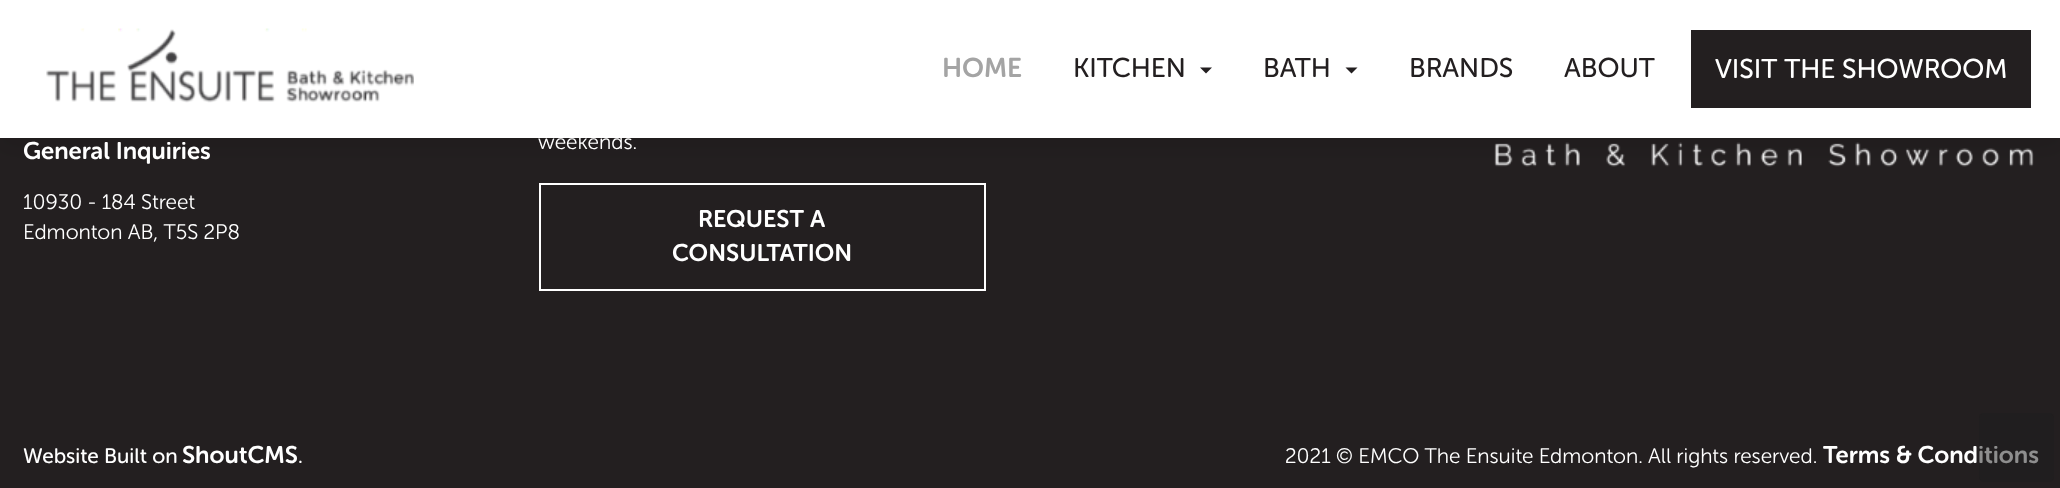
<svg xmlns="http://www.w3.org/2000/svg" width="2060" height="488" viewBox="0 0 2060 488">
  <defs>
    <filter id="blur1" x="-50%" y="-200%" width="200%" height="500%"><feGaussianBlur stdDeviation="11"/></filter>
  </defs>
  <rect width="100%" height="100%" fill="#231f20"/>
  <image x="1494" y="142" width="540" height="25" href="img2.png"/>
  <rect x="0" y="8" width="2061" height="138" fill="#000000" fill-opacity="0.1" filter="url(#blur1)"/>
  <rect x="0" y="0" width="2060" height="138" fill="#ffffff"/>
  <image x="46" y="28" width="368" height="75" href="img1.png"/>
  <text x="942" y="77" font-family="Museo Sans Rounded" font-size="27" font-weight="600" fill="#a4a4a4">HOME</text>
  <text x="1073" y="77" font-family="Museo Sans Rounded" font-size="27" fill="#231f20">KITCHEN</text>
  <path d="M1200 67.5H1212L1206 73.5Z" fill="#231f20"/>
  <text x="1263" y="77" font-family="Museo Sans Rounded" font-size="27" fill="#231f20">BATH</text>
  <path d="M1345.5 67.5H1357.5L1351.5 73.5Z" fill="#231f20"/>
  <text x="1409" y="77" font-family="Museo Sans Rounded" font-size="27" fill="#231f20">BRANDS</text>
  <text x="1564" y="77" font-family="Museo Sans Rounded" font-size="27" fill="#231f20">ABOUT</text>
  <rect x="1692" y="31" width="338" height="76" fill="#231f20" stroke="#231f20" stroke-width="2"/>
  <text x="1715" y="78" font-family="Museo Sans Rounded" font-size="27" fill="#ffffff">VISIT THE SHOWROOM</text>
  <text x="23" y="159" font-family="Museo Sans Rounded" font-size="24" font-weight="600" fill="#ffffff">General Inquiries</text>
  <text x="23" y="209" font-family="Museo Sans Rounded" font-size="21" font-weight="300" fill="#ffffff">10930 - 184 Street</text>
  <text x="23" y="239" font-family="Museo Sans Rounded" font-size="21" font-weight="300" fill="#ffffff">Edmonton AB, T5S 2P8</text>
  <text x="538" y="149" font-family="Museo Sans Rounded" font-size="21" font-weight="300" fill="#ffffff">weekends.</text>
  <rect x="540" y="184" width="445" height="106" fill="none" stroke="#ffffff" stroke-width="2"/>
  <text x="698" y="227" font-family="Museo Sans Rounded" font-size="24" font-weight="600" fill="#ffffff">REQUEST A</text>
  <text x="672" y="261" font-family="Museo Sans Rounded" font-size="24" font-weight="600" fill="#ffffff">CONSULTATION</text>
  <text x="23" y="463" font-family="Museo Sans Rounded" font-size="21" fill="#ffffff">Website Built on</text>
  <text x="182" y="463" font-family="Museo Sans Rounded" font-size="24" font-weight="600" fill="#ffffff">ShoutCMS</text>
  <text x="298" y="463" font-family="Museo Sans Rounded" font-size="21" fill="#ffffff">.</text>
  <text x="1285" y="463" font-family="Museo Sans Rounded" font-size="21" font-weight="300" fill="#ffffff">2021 © EMCO The Ensuite Edmonton. All rights reserved.</text>
  <text x="1823" y="463" font-family="Museo Sans Rounded" font-size="24" font-weight="600" fill="#ffffff">Terms &amp; Conditions</text>
  <rect x="1979" y="413" width="75" height="69" rx="5" fill="#1d1d1d" fill-opacity="0.5"/>
</svg>
